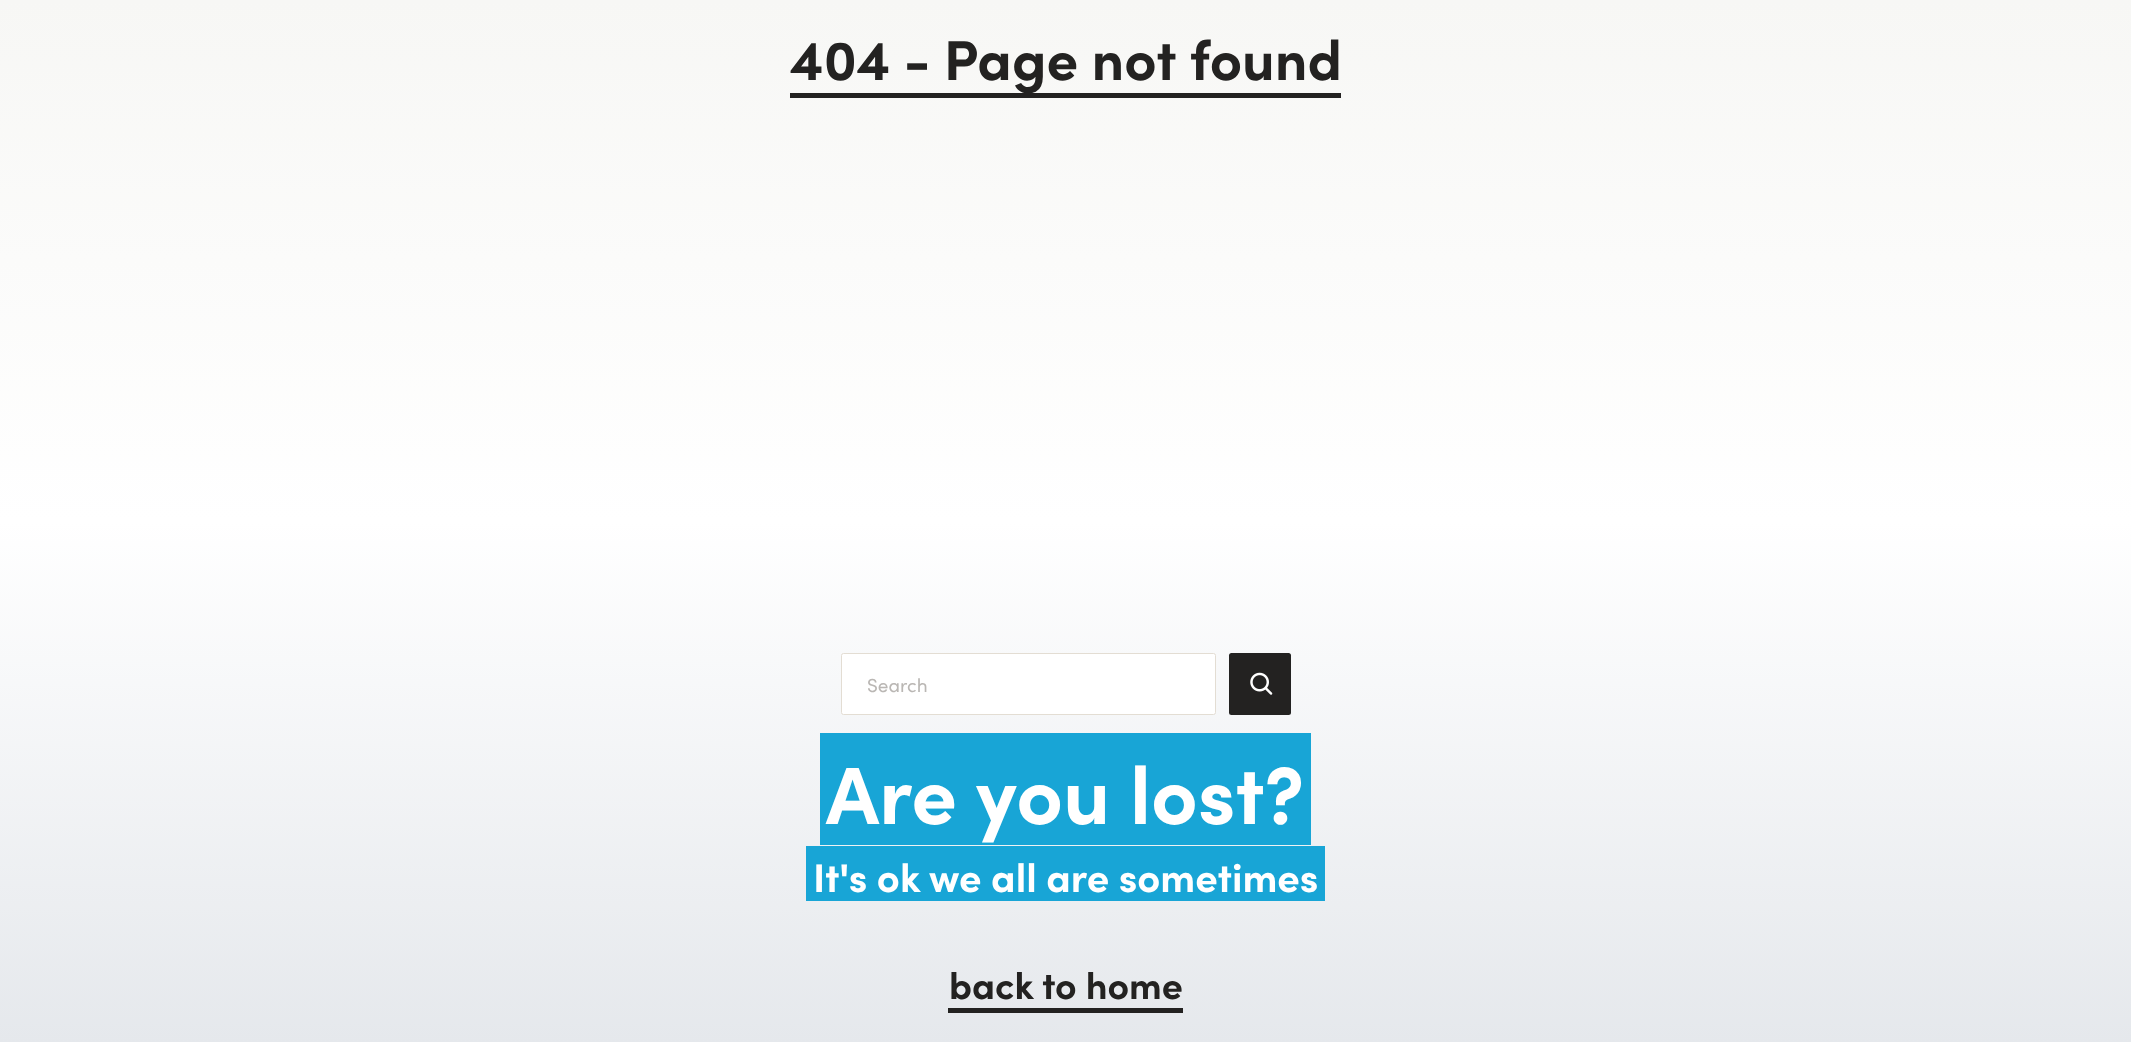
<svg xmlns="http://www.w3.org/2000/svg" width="2131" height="1042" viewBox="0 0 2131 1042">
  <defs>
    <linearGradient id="g1" gradientUnits="userSpaceOnUse" x1="1066" y1="0" x2="1066" y2="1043"><stop offset="0" stop-color="#f7f7f5"/><stop offset="0.5" stop-color="#ffffff"/><stop offset="1" stop-color="#e5e8ec"/></linearGradient>
  </defs>
  <rect width="100%" height="100%" fill="#ffffff"/>
  <rect x="0" y="0" width="2131" height="1042" fill="url(#g1)"/>
  <text x="790" y="80" font-family="Sofia" font-size="56.25" font-weight="bold" fill="#232221">404 - Page not found</text>
  <rect x="790" y="93" width="551" height="5" fill="#232221"/>
  <rect x="841.5" y="653.5" width="374" height="61" rx="2" fill="#ffffff" stroke="#e3ddd3"/>
  <text x="867" y="692" font-family="Sofia" font-size="19" fill="#bab7b4">Search</text>
  <rect x="1229" y="653" width="62" height="62" rx="2.5" fill="#232221"/>
  <image x="1250" y="672" width="23" height="23" href="img1.png"/>
  <rect x="820" y="733" width="491" height="112" fill="#18a5d6"/>
  <text x="826" y="824" font-family="Sofia" font-size="81.25" font-weight="bold" fill="#ffffff">Are you lost?</text>
  <rect x="806" y="846" width="519" height="55" fill="#18a5d6"/>
  <text x="813" y="892" font-family="Sofia" font-size="40" font-weight="bold" fill="#ffffff">It's ok we all are sometimes</text>
  <text x="949" y="999" font-family="Sofia" font-size="37.5" font-weight="bold" fill="#232221">back to home</text>
  <rect x="948" y="1008" width="235" height="5" fill="#232221"/>
</svg>
